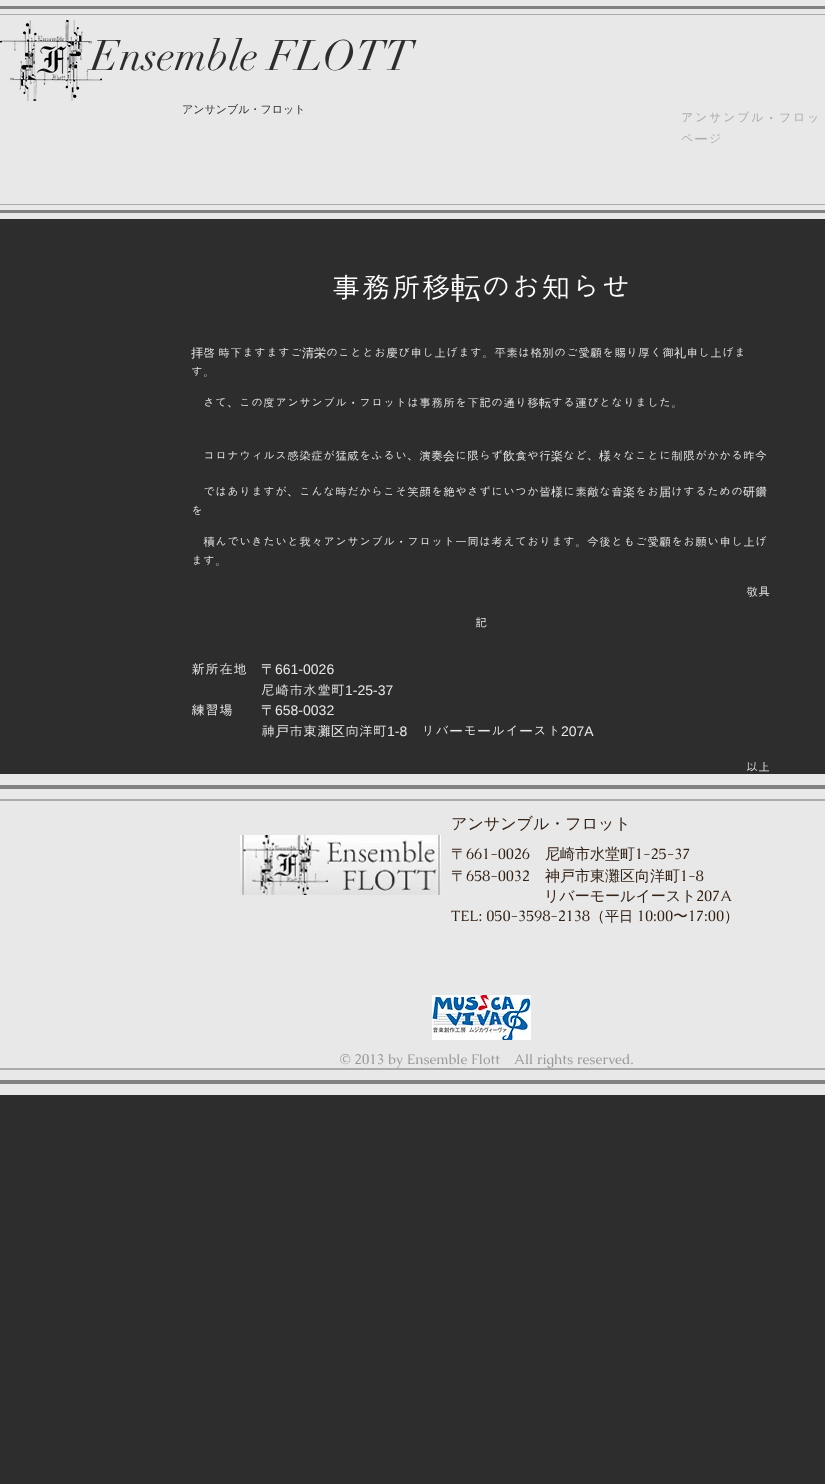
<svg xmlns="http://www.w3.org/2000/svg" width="825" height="1484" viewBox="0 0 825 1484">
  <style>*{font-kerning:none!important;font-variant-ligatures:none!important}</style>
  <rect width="100%" height="100%" fill="#2d2d2d"/>
  <rect x="0" y="0" width="825" height="219" fill="#e8e8e8"/>
  <rect x="0" y="6" width="825" height="3" fill="#818181"/>
  <rect x="0" y="210" width="825" height="3" fill="#818181"/>
  <rect x="0" y="14" width="825" height="1" fill="#ababab"/>
  <rect x="0" y="204" width="825" height="1" fill="#ababab"/>
  <text x="91" y="70" font-family="didot" font-size="42" fill="#2d2d2d">Ensemble FLOTT</text>
  <image x="0" y="20" width="102" height="81" href="img1.png"/>
  <text x="182" y="113" font-family="WenQuanYi Zen Hei" font-size="11" font-weight="500" fill="#2d2d2d">アンサンブル・フロット</text>
  <text x="680" y="123" font-family="Dotum" font-size="14" fill="#ababab">アンサンブル</text>
  <text x="764" y="123" font-family="WenQuanYi Zen Hei" font-size="14" font-weight="500" fill="#ababab">・</text>
  <text x="778" y="123" font-family="Dotum" font-size="14" fill="#ababab">フロッ</text>
  <text x="680" y="144" font-family="Dotum" font-size="14" fill="#ababab">ペ</text>
  <text x="694" y="144" font-family="WenQuanYi Zen Hei" font-size="14" font-weight="500" fill="#ababab">ー</text>
  <text x="708" y="144" font-family="Dotum" font-size="14" fill="#ababab">ジ</text>
  <text x="331" y="298" font-family="Dotum" font-size="30" fill="#ffffff">事務所移</text>
  <text x="451" y="298" font-family="WenQuanYi Zen Hei" font-size="30" font-weight="500" fill="#ffffff">転</text>
  <text x="481" y="298" font-family="Dotum" font-size="30" fill="#ffffff">のお知らせ</text>
  <text x="191" y="357" font-family="WenQuanYi Zen Hei" font-size="12" font-weight="500" fill="#e8e8e8">拝</text>
  <text x="203" y="357" word-spacing="-1" font-family="Dotum" font-size="12" fill="#e8e8e8">啓 時下ますますご</text>
  <text x="302" y="357" font-family="WenQuanYi Zen Hei" font-size="12" font-weight="500" fill="#e8e8e8">清栄</text>
  <text x="326" y="357" font-family="Dotum" font-size="12" fill="#e8e8e8">のこととお慶び申し上げます。平素は格別のご愛顧を賜り厚く御</text>
  <text x="674" y="357" font-family="WenQuanYi Zen Hei" font-size="12" font-weight="500" fill="#e8e8e8">礼</text>
  <text x="686" y="357" font-family="Dotum" font-size="12" fill="#e8e8e8">申し上げま</text>
  <text x="191" y="376" font-family="Dotum" font-size="12" fill="#e8e8e8">す。</text>
  <text x="203" y="407" font-family="Dotum" font-size="12" fill="#e8e8e8">さて、この度アンサンブル</text>
  <text x="347" y="407" font-family="WenQuanYi Zen Hei" font-size="12" font-weight="500" fill="#e8e8e8">・</text>
  <text x="359" y="407" font-family="Dotum" font-size="12" fill="#e8e8e8">フロットは事務所を下記の通り移</text>
  <text x="539" y="407" font-family="WenQuanYi Zen Hei" font-size="12" font-weight="500" fill="#e8e8e8">転</text>
  <text x="551" y="407" font-family="Dotum" font-size="12" fill="#e8e8e8">する運びとなりました。</text>
  <text x="203" y="460" font-family="Dotum" font-size="12" fill="#e8e8e8">コロナウィルス感染症が猛威をふるい、演奏</text>
  <text x="443" y="460" font-family="WenQuanYi Zen Hei" font-size="12" font-weight="500" fill="#e8e8e8">会</text>
  <text x="455" y="460" font-family="Dotum" font-size="12" fill="#e8e8e8">に限らず</text>
  <text x="503" y="460" font-family="WenQuanYi Zen Hei" font-size="12" font-weight="500" fill="#e8e8e8">飲</text>
  <text x="515" y="460" font-family="Dotum" font-size="12" fill="#e8e8e8">食や行</text>
  <text x="551" y="460" font-family="WenQuanYi Zen Hei" font-size="12" font-weight="500" fill="#e8e8e8">楽</text>
  <text x="563" y="460" font-family="Dotum" font-size="12" fill="#e8e8e8">など、</text>
  <text x="599" y="460" font-family="WenQuanYi Zen Hei" font-size="12" font-weight="500" fill="#e8e8e8">様々</text>
  <text x="623" y="460" font-family="Dotum" font-size="12" fill="#e8e8e8">なことに制限がかかる昨今</text>
  <text x="203" y="496" font-family="Dotum" font-size="12" fill="#e8e8e8">ではありますが、こんな時だからこそ笑顔を絶やさずにいつか皆</text>
  <text x="551" y="496" font-family="WenQuanYi Zen Hei" font-size="12" font-weight="500" fill="#e8e8e8">様</text>
  <text x="563" y="496" font-family="Dotum" font-size="12" fill="#e8e8e8">に素敵な音</text>
  <text x="623" y="496" font-family="WenQuanYi Zen Hei" font-size="12" font-weight="500" fill="#e8e8e8">楽</text>
  <text x="635" y="496" font-family="Dotum" font-size="12" fill="#e8e8e8">をお</text>
  <text x="659" y="496" font-family="WenQuanYi Zen Hei" font-size="12" font-weight="500" fill="#e8e8e8">届</text>
  <text x="671" y="496" font-family="Dotum" font-size="12" fill="#e8e8e8">けするための</text>
  <text x="743" y="496" font-family="WenQuanYi Zen Hei" font-size="12" font-weight="500" fill="#e8e8e8">研</text>
  <text x="755" y="496" font-family="Dotum" font-size="12" fill="#e8e8e8">鑽</text>
  <text x="191" y="515" font-family="Dotum" font-size="12" fill="#e8e8e8">を</text>
  <text x="203" y="546" font-family="Dotum" font-size="12" fill="#e8e8e8">積んでいきたいと我</text>
  <text x="311" y="546" font-family="WenQuanYi Zen Hei" font-size="12" font-weight="500" fill="#e8e8e8">々</text>
  <text x="323" y="546" font-family="Dotum" font-size="12" fill="#e8e8e8">アンサンブル</text>
  <text x="395" y="546" font-family="WenQuanYi Zen Hei" font-size="12" font-weight="500" fill="#e8e8e8">・</text>
  <text x="407" y="546" font-family="Dotum" font-size="12" fill="#e8e8e8">フロット一同は考えております。今後ともご愛顧をお願い申し上げ</text>
  <text x="191" y="565" font-family="Dotum" font-size="12" fill="#e8e8e8">ます。</text>
  <text x="746" y="596" font-family="Dotum" font-size="12" fill="#e8e8e8">敬具</text>
  <text x="475" y="627" font-family="Dotum" font-size="12" fill="#e8e8e8">記</text>
  <text x="191" y="674" font-family="Dotum" font-size="14" fill="#e8e8e8">新所在地</text>
  <text x="261" y="674" font-family="WenQuanYi Zen Hei" font-size="14" font-weight="500" fill="#e8e8e8">〒</text>
  <text x="275" y="674" font-family="Liberation Sans" font-size="14" fill="#e8e8e8">661-0026</text>
  <text x="261" y="695" font-family="Dotum" font-size="14" fill="#e8e8e8">尼崎市水堂町</text>
  <text x="345" y="695" font-family="Liberation Sans" font-size="14" fill="#e8e8e8">1-25-37</text>
  <text x="191" y="715" font-family="Dotum" font-size="14" fill="#e8e8e8">練習場</text>
  <text x="261" y="715" font-family="WenQuanYi Zen Hei" font-size="14" font-weight="500" fill="#e8e8e8">〒</text>
  <text x="275" y="715" font-family="Liberation Sans" font-size="14" fill="#e8e8e8">658-0032</text>
  <text x="261" y="736" font-family="Dotum" font-size="14" fill="#e8e8e8">神</text>
  <text x="275" y="736" font-family="WenQuanYi Zen Hei" font-size="14" font-weight="500" fill="#e8e8e8">戸</text>
  <text x="289" y="736" font-family="Dotum" font-size="14" fill="#e8e8e8">市東灘</text>
  <text x="331" y="736" font-family="WenQuanYi Zen Hei" font-size="14" font-weight="500" fill="#e8e8e8">区</text>
  <text x="345" y="736" font-family="Dotum" font-size="14" fill="#e8e8e8">向洋町</text>
  <text x="387" y="736" font-family="Liberation Sans" font-size="14" fill="#e8e8e8">1-8</text>
  <text x="421" y="736" font-family="Dotum" font-size="14" fill="#e8e8e8">リバ</text>
  <text x="449" y="736" font-family="WenQuanYi Zen Hei" font-size="14" font-weight="500" fill="#e8e8e8">ー</text>
  <text x="463" y="736" font-family="Dotum" font-size="14" fill="#e8e8e8">モ</text>
  <text x="477" y="736" font-family="WenQuanYi Zen Hei" font-size="14" font-weight="500" fill="#e8e8e8">ー</text>
  <text x="491" y="736" font-family="Dotum" font-size="14" fill="#e8e8e8">ルイ</text>
  <text x="519" y="736" font-family="WenQuanYi Zen Hei" font-size="14" font-weight="500" fill="#e8e8e8">ー</text>
  <text x="533" y="736" font-family="Dotum" font-size="14" fill="#e8e8e8">スト</text>
  <text x="561" y="736" font-family="Liberation Sans" font-size="14" fill="#e8e8e8">207A</text>
  <text x="746" y="771" font-family="Dotum" font-size="12" fill="#e8e8e8">以上</text>
  <rect x="0" y="774" width="825" height="321" fill="#e8e8e8"/>
  <rect x="0" y="785" width="825" height="4" fill="#818181"/>
  <rect x="0" y="1080" width="825" height="4" fill="#818181"/>
  <rect x="0" y="799" width="825" height="2" fill="#ababab"/>
  <rect x="0" y="1068" width="825" height="2" fill="#ababab"/>
  <text x="451" y="829" font-family="WenQuanYi Zen Hei" font-size="16" font-weight="500" fill="#342216">アンサンブル・フロット</text>
  <image x="240" y="835" width="201" height="60" href="img2.png"/>
  <text x="451" y="859" font-family="WenQuanYi Zen Hei" font-size="15" font-weight="500" fill="#342216">〒</text>
  <text x="466" y="859" font-family="Caudex" font-size="15" fill="#342216">661-0026</text>
  <text x="545" y="859" font-family="WenQuanYi Zen Hei" font-size="15" font-weight="500" fill="#342216">尼崎市水堂町</text>
  <text x="635" y="859" font-family="Caudex" font-size="15" fill="#342216">1-25-37</text>
  <text x="451" y="881" font-family="WenQuanYi Zen Hei" font-size="15" font-weight="500" fill="#342216">〒</text>
  <text x="466" y="881" font-family="Caudex" font-size="15" fill="#342216">658-0032</text>
  <text x="545" y="881" font-family="WenQuanYi Zen Hei" font-size="15" font-weight="500" fill="#342216">神戸市東灘区向洋町</text>
  <text x="680" y="881" font-family="Caudex" font-size="15" fill="#342216">1-8</text>
  <text x="544" y="901" font-family="WenQuanYi Zen Hei" font-size="15" font-weight="500" fill="#342216">リバーモールイースト</text>
  <text x="696" y="901" font-family="Caudex" font-size="15" fill="#342216">207A</text>
  <text x="451" y="921" font-family="Caudex" font-size="15" fill="#342216">TEL: 050-3598-2138</text>
  <text x="590" y="921" font-family="WenQuanYi Zen Hei" font-size="15" font-weight="500" fill="#342216">（</text>
  <text x="605" y="921" font-family="WenQuanYi Zen Hei" font-size="14" font-weight="500" fill="#342216">平日</text>
  <text x="637" y="921" font-family="Caudex" font-size="15" fill="#342216">10:00</text>
  <text x="673" y="921" font-family="WenQuanYi Zen Hei" font-size="15" font-weight="500" fill="#342216">〜</text>
  <text x="688" y="921" font-family="Caudex" font-size="15" fill="#342216">17:00</text>
  <text x="724" y="921" font-family="WenQuanYi Zen Hei" font-size="15" font-weight="500" fill="#342216">）</text>
  <image x="432" y="995" width="99" height="45" href="img3.png"/>
  <text x="340" y="1064" font-family="Caudex" font-size="14" fill="#999999">© 2013 by Ensemble Flott</text>
  <text x="514" y="1064" font-family="Caudex" font-size="14" fill="#999999">All rights reserved.</text>
</svg>
